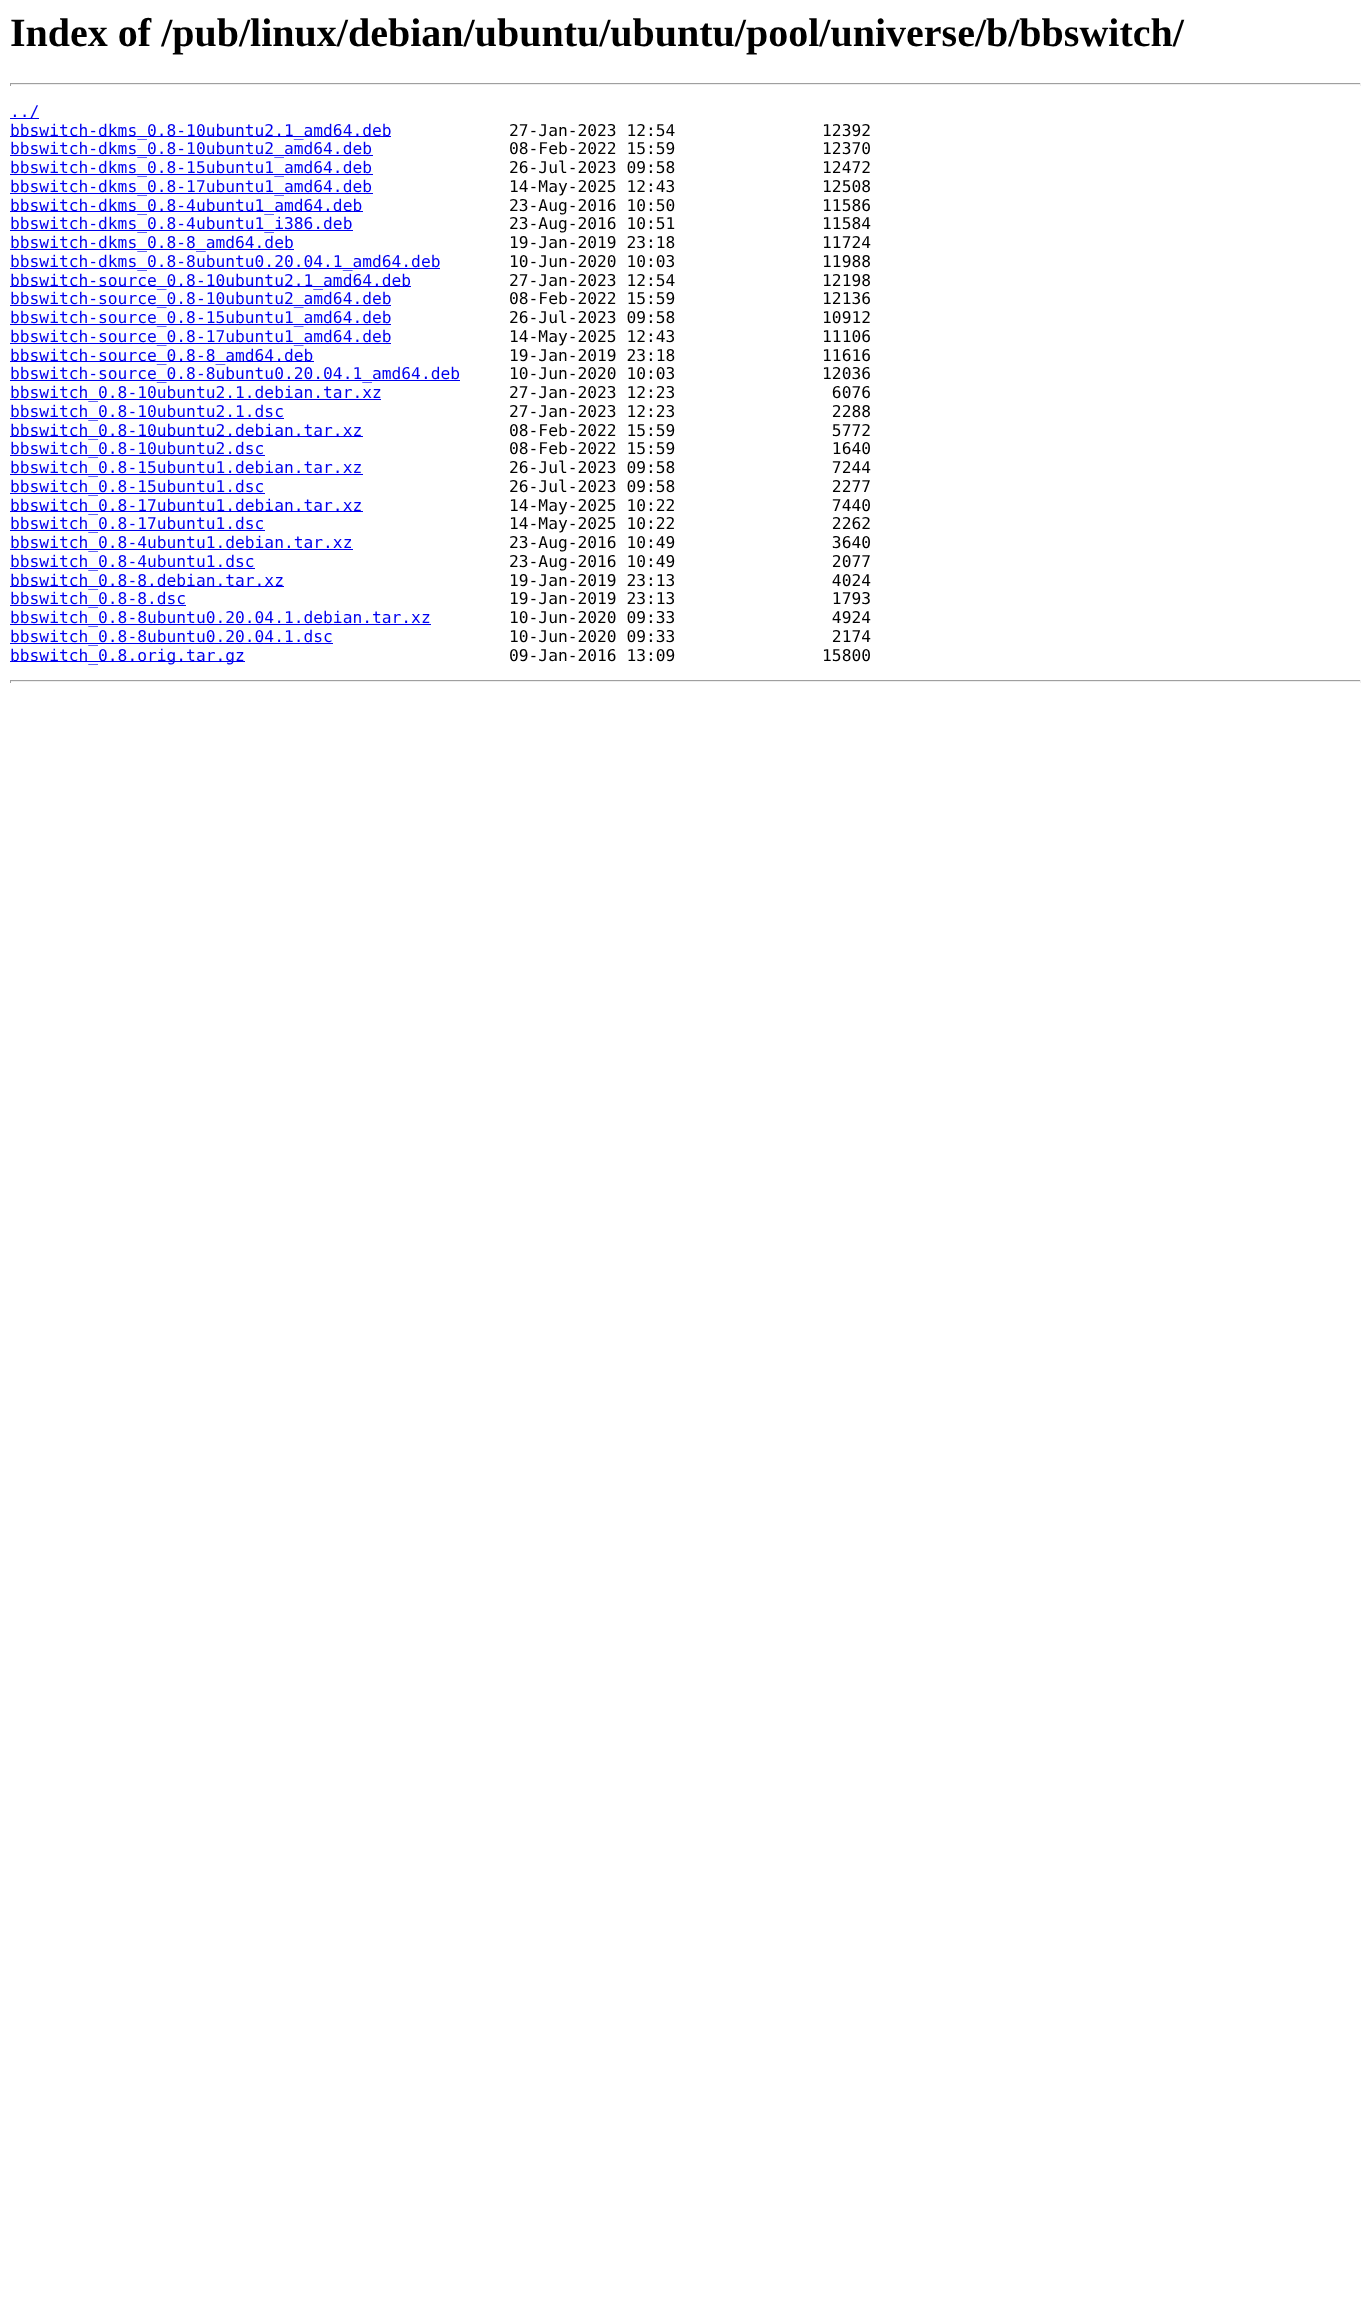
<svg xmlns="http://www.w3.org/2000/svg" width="1371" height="2297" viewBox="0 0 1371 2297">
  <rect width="100%" height="100%" fill="#ffffff"/>
  <text x="10" y="46" font-family="Liberation Serif" font-size="40" font-weight="bold" fill="#000000">Index of /pub/linux/debian/ubuntu/ubuntu/pool/universe/b/bbswitch/</text>
  <rect x="10" y="83" width="1351" height="1" fill="#9f9f9f"/>
  <rect x="1360" y="83" width="1" height="3" fill="#eeeeee"/>
  <rect x="10" y="84" width="1351" height="1" fill="#eeeeee"/>
  <rect x="10" y="83" width="1" height="3" fill="#9f9f9f"/>
  <rect x="10" y="118" width="29" height="1" fill="#0000ee"/>
  <text x="10" y="117" font-family="DejaVu Sans Mono" font-size="16.25" fill="#0000ee">../</text>
  <rect x="10" y="136" width="381" height="1" fill="#0000ee"/>
  <text x="10" y="136" font-family="DejaVu Sans Mono" font-size="16.25" fill="#0000ee">bbswitch-dkms_0.8-10ubuntu2.1_amd64.deb</text>
  <text x="509" y="136" font-family="DejaVu Sans Mono" font-size="16.25" fill="#000000" xml:space="preserve">27-Jan-2023 12:54               12392</text>
  <rect x="10" y="155" width="363" height="1" fill="#0000ee"/>
  <text x="10" y="154" font-family="DejaVu Sans Mono" font-size="16.25" fill="#0000ee">bbswitch-dkms_0.8-10ubuntu2_amd64.deb</text>
  <text x="509" y="154" font-family="DejaVu Sans Mono" font-size="16.25" fill="#000000" xml:space="preserve">08-Feb-2022 15:59               12370</text>
  <rect x="10" y="174" width="363" height="1" fill="#0000ee"/>
  <text x="10" y="173" font-family="DejaVu Sans Mono" font-size="16.25" fill="#0000ee">bbswitch-dkms_0.8-15ubuntu1_amd64.deb</text>
  <text x="509" y="173" font-family="DejaVu Sans Mono" font-size="16.25" fill="#000000" xml:space="preserve">26-Jul-2023 09:58               12472</text>
  <rect x="10" y="193" width="363" height="1" fill="#0000ee"/>
  <text x="10" y="192" font-family="DejaVu Sans Mono" font-size="16.25" fill="#0000ee">bbswitch-dkms_0.8-17ubuntu1_amd64.deb</text>
  <text x="509" y="192" font-family="DejaVu Sans Mono" font-size="16.25" fill="#000000" xml:space="preserve">14-May-2025 12:43               12508</text>
  <rect x="10" y="211" width="353" height="1" fill="#0000ee"/>
  <text x="10" y="211" font-family="DejaVu Sans Mono" font-size="16.25" fill="#0000ee">bbswitch-dkms_0.8-4ubuntu1_amd64.deb</text>
  <text x="509" y="211" font-family="DejaVu Sans Mono" font-size="16.25" fill="#000000" xml:space="preserve">23-Aug-2016 10:50               11586</text>
  <rect x="10" y="230" width="343" height="1" fill="#0000ee"/>
  <text x="10" y="229" font-family="DejaVu Sans Mono" font-size="16.25" fill="#0000ee">bbswitch-dkms_0.8-4ubuntu1_i386.deb</text>
  <text x="509" y="229" font-family="DejaVu Sans Mono" font-size="16.25" fill="#000000" xml:space="preserve">23-Aug-2016 10:51               11584</text>
  <rect x="10" y="249" width="284" height="1" fill="#0000ee"/>
  <text x="10" y="248" font-family="DejaVu Sans Mono" font-size="16.25" fill="#0000ee">bbswitch-dkms_0.8-8_amd64.deb</text>
  <text x="509" y="248" font-family="DejaVu Sans Mono" font-size="16.25" fill="#000000" xml:space="preserve">19-Jan-2019 23:18               11724</text>
  <rect x="10" y="268" width="430" height="1" fill="#0000ee"/>
  <text x="10" y="267" font-family="DejaVu Sans Mono" font-size="16.25" fill="#0000ee">bbswitch-dkms_0.8-8ubuntu0.20.04.1_amd64.deb</text>
  <text x="509" y="267" font-family="DejaVu Sans Mono" font-size="16.25" fill="#000000" xml:space="preserve">10-Jun-2020 10:03               11988</text>
  <rect x="10" y="286" width="401" height="1" fill="#0000ee"/>
  <text x="10" y="286" font-family="DejaVu Sans Mono" font-size="16.25" fill="#0000ee">bbswitch-source_0.8-10ubuntu2.1_amd64.deb</text>
  <text x="509" y="286" font-family="DejaVu Sans Mono" font-size="16.25" fill="#000000" xml:space="preserve">27-Jan-2023 12:54               12198</text>
  <rect x="10" y="305" width="381" height="1" fill="#0000ee"/>
  <text x="10" y="304" font-family="DejaVu Sans Mono" font-size="16.25" fill="#0000ee">bbswitch-source_0.8-10ubuntu2_amd64.deb</text>
  <text x="509" y="304" font-family="DejaVu Sans Mono" font-size="16.25" fill="#000000" xml:space="preserve">08-Feb-2022 15:59               12136</text>
  <rect x="10" y="324" width="381" height="1" fill="#0000ee"/>
  <text x="10" y="323" font-family="DejaVu Sans Mono" font-size="16.25" fill="#0000ee">bbswitch-source_0.8-15ubuntu1_amd64.deb</text>
  <text x="509" y="323" font-family="DejaVu Sans Mono" font-size="16.25" fill="#000000" xml:space="preserve">26-Jul-2023 09:58               10912</text>
  <rect x="10" y="343" width="381" height="1" fill="#0000ee"/>
  <text x="10" y="342" font-family="DejaVu Sans Mono" font-size="16.25" fill="#0000ee">bbswitch-source_0.8-17ubuntu1_amd64.deb</text>
  <text x="509" y="342" font-family="DejaVu Sans Mono" font-size="16.25" fill="#000000" xml:space="preserve">14-May-2025 12:43               11106</text>
  <rect x="10" y="361" width="304" height="1" fill="#0000ee"/>
  <text x="10" y="361" font-family="DejaVu Sans Mono" font-size="16.25" fill="#0000ee">bbswitch-source_0.8-8_amd64.deb</text>
  <text x="509" y="361" font-family="DejaVu Sans Mono" font-size="16.25" fill="#000000" xml:space="preserve">19-Jan-2019 23:18               11616</text>
  <rect x="10" y="380" width="450" height="1" fill="#0000ee"/>
  <text x="10" y="379" font-family="DejaVu Sans Mono" font-size="16.25" fill="#0000ee">bbswitch-source_0.8-8ubuntu0.20.04.1_amd64.deb</text>
  <text x="509" y="379" font-family="DejaVu Sans Mono" font-size="16.25" fill="#000000" xml:space="preserve">10-Jun-2020 10:03               12036</text>
  <rect x="10" y="399" width="371" height="1" fill="#0000ee"/>
  <text x="10" y="398" font-family="DejaVu Sans Mono" font-size="16.25" fill="#0000ee">bbswitch_0.8-10ubuntu2.1.debian.tar.xz</text>
  <text x="509" y="398" font-family="DejaVu Sans Mono" font-size="16.25" fill="#000000" xml:space="preserve">27-Jan-2023 12:23                6076</text>
  <rect x="10" y="418" width="274" height="1" fill="#0000ee"/>
  <text x="10" y="417" font-family="DejaVu Sans Mono" font-size="16.25" fill="#0000ee">bbswitch_0.8-10ubuntu2.1.dsc</text>
  <text x="509" y="417" font-family="DejaVu Sans Mono" font-size="16.25" fill="#000000" xml:space="preserve">27-Jan-2023 12:23                2288</text>
  <rect x="10" y="436" width="353" height="1" fill="#0000ee"/>
  <text x="10" y="436" font-family="DejaVu Sans Mono" font-size="16.25" fill="#0000ee">bbswitch_0.8-10ubuntu2.debian.tar.xz</text>
  <text x="509" y="436" font-family="DejaVu Sans Mono" font-size="16.25" fill="#000000" xml:space="preserve">08-Feb-2022 15:59                5772</text>
  <rect x="10" y="455" width="255" height="1" fill="#0000ee"/>
  <text x="10" y="454" font-family="DejaVu Sans Mono" font-size="16.25" fill="#0000ee">bbswitch_0.8-10ubuntu2.dsc</text>
  <text x="509" y="454" font-family="DejaVu Sans Mono" font-size="16.25" fill="#000000" xml:space="preserve">08-Feb-2022 15:59                1640</text>
  <rect x="10" y="474" width="353" height="1" fill="#0000ee"/>
  <text x="10" y="473" font-family="DejaVu Sans Mono" font-size="16.25" fill="#0000ee">bbswitch_0.8-15ubuntu1.debian.tar.xz</text>
  <text x="509" y="473" font-family="DejaVu Sans Mono" font-size="16.25" fill="#000000" xml:space="preserve">26-Jul-2023 09:58                7244</text>
  <rect x="10" y="493" width="255" height="1" fill="#0000ee"/>
  <text x="10" y="492" font-family="DejaVu Sans Mono" font-size="16.25" fill="#0000ee">bbswitch_0.8-15ubuntu1.dsc</text>
  <text x="509" y="492" font-family="DejaVu Sans Mono" font-size="16.25" fill="#000000" xml:space="preserve">26-Jul-2023 09:58                2277</text>
  <rect x="10" y="511" width="353" height="1" fill="#0000ee"/>
  <text x="10" y="511" font-family="DejaVu Sans Mono" font-size="16.25" fill="#0000ee">bbswitch_0.8-17ubuntu1.debian.tar.xz</text>
  <text x="509" y="511" font-family="DejaVu Sans Mono" font-size="16.25" fill="#000000" xml:space="preserve">14-May-2025 10:22                7440</text>
  <rect x="10" y="530" width="255" height="1" fill="#0000ee"/>
  <text x="10" y="529" font-family="DejaVu Sans Mono" font-size="16.25" fill="#0000ee">bbswitch_0.8-17ubuntu1.dsc</text>
  <text x="509" y="529" font-family="DejaVu Sans Mono" font-size="16.25" fill="#000000" xml:space="preserve">14-May-2025 10:22                2262</text>
  <rect x="10" y="549" width="343" height="1" fill="#0000ee"/>
  <text x="10" y="548" font-family="DejaVu Sans Mono" font-size="16.25" fill="#0000ee">bbswitch_0.8-4ubuntu1.debian.tar.xz</text>
  <text x="509" y="548" font-family="DejaVu Sans Mono" font-size="16.25" fill="#000000" xml:space="preserve">23-Aug-2016 10:49                3640</text>
  <rect x="10" y="568" width="245" height="1" fill="#0000ee"/>
  <text x="10" y="567" font-family="DejaVu Sans Mono" font-size="16.25" fill="#0000ee">bbswitch_0.8-4ubuntu1.dsc</text>
  <text x="509" y="567" font-family="DejaVu Sans Mono" font-size="16.25" fill="#000000" xml:space="preserve">23-Aug-2016 10:49                2077</text>
  <rect x="10" y="586" width="274" height="1" fill="#0000ee"/>
  <text x="10" y="586" font-family="DejaVu Sans Mono" font-size="16.25" fill="#0000ee">bbswitch_0.8-8.debian.tar.xz</text>
  <text x="509" y="586" font-family="DejaVu Sans Mono" font-size="16.25" fill="#000000" xml:space="preserve">19-Jan-2019 23:13                4024</text>
  <rect x="10" y="605" width="176" height="1" fill="#0000ee"/>
  <text x="10" y="604" font-family="DejaVu Sans Mono" font-size="16.25" fill="#0000ee">bbswitch_0.8-8.dsc</text>
  <text x="509" y="604" font-family="DejaVu Sans Mono" font-size="16.25" fill="#000000" xml:space="preserve">19-Jan-2019 23:13                1793</text>
  <rect x="10" y="624" width="421" height="1" fill="#0000ee"/>
  <text x="10" y="623" font-family="DejaVu Sans Mono" font-size="16.25" fill="#0000ee">bbswitch_0.8-8ubuntu0.20.04.1.debian.tar.xz</text>
  <text x="509" y="623" font-family="DejaVu Sans Mono" font-size="16.25" fill="#000000" xml:space="preserve">10-Jun-2020 09:33                4924</text>
  <rect x="10" y="643" width="323" height="1" fill="#0000ee"/>
  <text x="10" y="642" font-family="DejaVu Sans Mono" font-size="16.25" fill="#0000ee">bbswitch_0.8-8ubuntu0.20.04.1.dsc</text>
  <text x="509" y="642" font-family="DejaVu Sans Mono" font-size="16.25" fill="#000000" xml:space="preserve">10-Jun-2020 09:33                2174</text>
  <rect x="10" y="661" width="235" height="1" fill="#0000ee"/>
  <text x="10" y="661" font-family="DejaVu Sans Mono" font-size="16.25" fill="#0000ee">bbswitch_0.8.orig.tar.gz</text>
  <text x="509" y="661" font-family="DejaVu Sans Mono" font-size="16.25" fill="#000000" xml:space="preserve">09-Jan-2016 13:09               15800</text>
  <rect x="10" y="680" width="1351" height="1" fill="#9f9f9f"/>
  <rect x="1360" y="680" width="1" height="3" fill="#eeeeee"/>
  <rect x="10" y="681" width="1351" height="1" fill="#eeeeee"/>
  <rect x="10" y="680" width="1" height="3" fill="#9f9f9f"/>
</svg>
